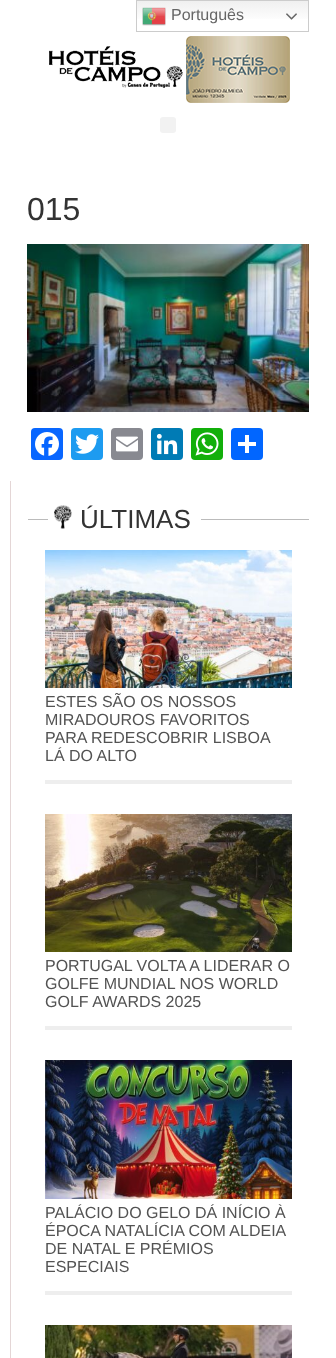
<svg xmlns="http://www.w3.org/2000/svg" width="336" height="1358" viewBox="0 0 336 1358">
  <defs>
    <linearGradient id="g1" gradientUnits="userSpaceOnUse" x1="223" y1="0" x2="223" y2="32"><stop offset="0" stop-color="#efefef"/><stop offset="0.7" stop-color="#ffffff"/></linearGradient>
  </defs>
  <rect width="100%" height="100%" fill="#ffffff"/>
  <rect x="137" y="1" width="171" height="18" fill="url(#g1)"/>
  <rect x="136.5" y="0.5" width="172" height="31" fill="none" stroke="#cccccc"/>
  <image x="142" y="7" width="24" height="19" href="img1.png"/>
  <text x="171" y="20" font-family="Liberation Sans" font-size="16" fill="#666666">Português</text>
  <image x="286" y="13" width="11" height="7" href="img2.png"/>
  <image x="49" y="36" width="241" height="67" href="img3.png"/>
  <rect x="160" y="117" width="16" height="16" rx="3" fill="#f2f2f2"/>
  <text x="27" y="220" font-family="Liberation Sans" font-size="32" fill="#333333">015</text>
  <image x="27" y="244" width="282" height="168" href="img4.png"/>
  <rect x="31" y="428" width="32" height="32" rx="4" fill="#0866ff"/>
  <image x="35" y="432" width="24" height="24" href="img5.png"/>
  <rect x="71" y="428" width="32" height="32" rx="4" fill="#1d9bf0"/>
  <image x="75" y="434" width="24" height="20" href="img6.png"/>
  <rect x="111" y="428" width="32" height="32" rx="4" fill="#888990"/>
  <image x="116" y="436" width="22" height="16" href="img7.png"/>
  <rect x="151" y="428" width="32" height="32" rx="4" fill="#007bb5"/>
  <image x="156" y="433" width="22" height="22" href="img8.png"/>
  <rect x="191" y="428" width="32" height="32" rx="4" fill="#12af0a"/>
  <image x="195" y="432" width="24" height="24" href="img9.png"/>
  <rect x="231" y="428" width="32" height="32" rx="4" fill="#0166ff"/>
  <rect x="245" y="435" width="4" height="18" fill="#ffffff"/>
  <rect x="238" y="442" width="18" height="4" fill="#ffffff"/>
  <rect x="10" y="481" width="1" height="877" fill="#e4d6d6"/>
  <rect x="28" y="519" width="281" height="1" fill="#bbbbbb"/>
  <rect x="48" y="519" width="153" height="1" fill="#ffffff"/>
  <image x="54" y="505" width="18" height="24" href="img10.png"/>
  <text x="80" y="528" font-family="Liberation Sans" font-size="26" fill="#333333">ÚLTIMAS</text>
  <image x="45" y="550" width="247" height="138" href="img11.png"/>
  <rect x="45" y="780" width="247" height="4" fill="#eeeeee"/>
  <text x="45" y="707" font-family="Liberation Sans" font-size="16" fill="#535353">ESTES SÃO OS NOSSOS</text>
  <text x="45" y="725" font-family="Liberation Sans" font-size="16" fill="#535353">MIRADOUROS FAVORITOS</text>
  <text x="45" y="743" font-family="Liberation Sans" font-size="16" fill="#535353">PARA REDESCOBRIR LISBOA</text>
  <text x="45" y="761" font-family="Liberation Sans" font-size="16" fill="#535353">LÁ DO ALTO</text>
  <image x="45" y="814" width="247" height="138" href="img12.png"/>
  <rect x="45" y="1026" width="247" height="4" fill="#eeeeee"/>
  <text x="45" y="971" font-family="Liberation Sans" font-size="16" fill="#535353">PORTUGAL VOLTA A LIDERAR O</text>
  <text x="45" y="989" font-family="Liberation Sans" font-size="16" fill="#535353">GOLFE MUNDIAL NOS WORLD</text>
  <text x="45" y="1007" font-family="Liberation Sans" font-size="16" fill="#535353">GOLF AWARDS 2025</text>
  <image x="45" y="1060" width="247" height="139" href="img13.png"/>
  <rect x="45" y="1291" width="247" height="4" fill="#eeeeee"/>
  <text x="45" y="1218" font-family="Liberation Sans" font-size="16" fill="#535353">PALÁCIO DO GELO DÁ INÍCIO À</text>
  <text x="45" y="1236" font-family="Liberation Sans" font-size="16" fill="#535353">ÉPOCA NATALÍCIA COM ALDEIA</text>
  <text x="45" y="1254" font-family="Liberation Sans" font-size="16" fill="#535353">DE NATAL E PRÉMIOS</text>
  <text x="45" y="1272" font-family="Liberation Sans" font-size="16" fill="#535353">ESPECIAIS</text>
  <image x="45" y="1325" width="247" height="33" href="img14.png"/>
</svg>
